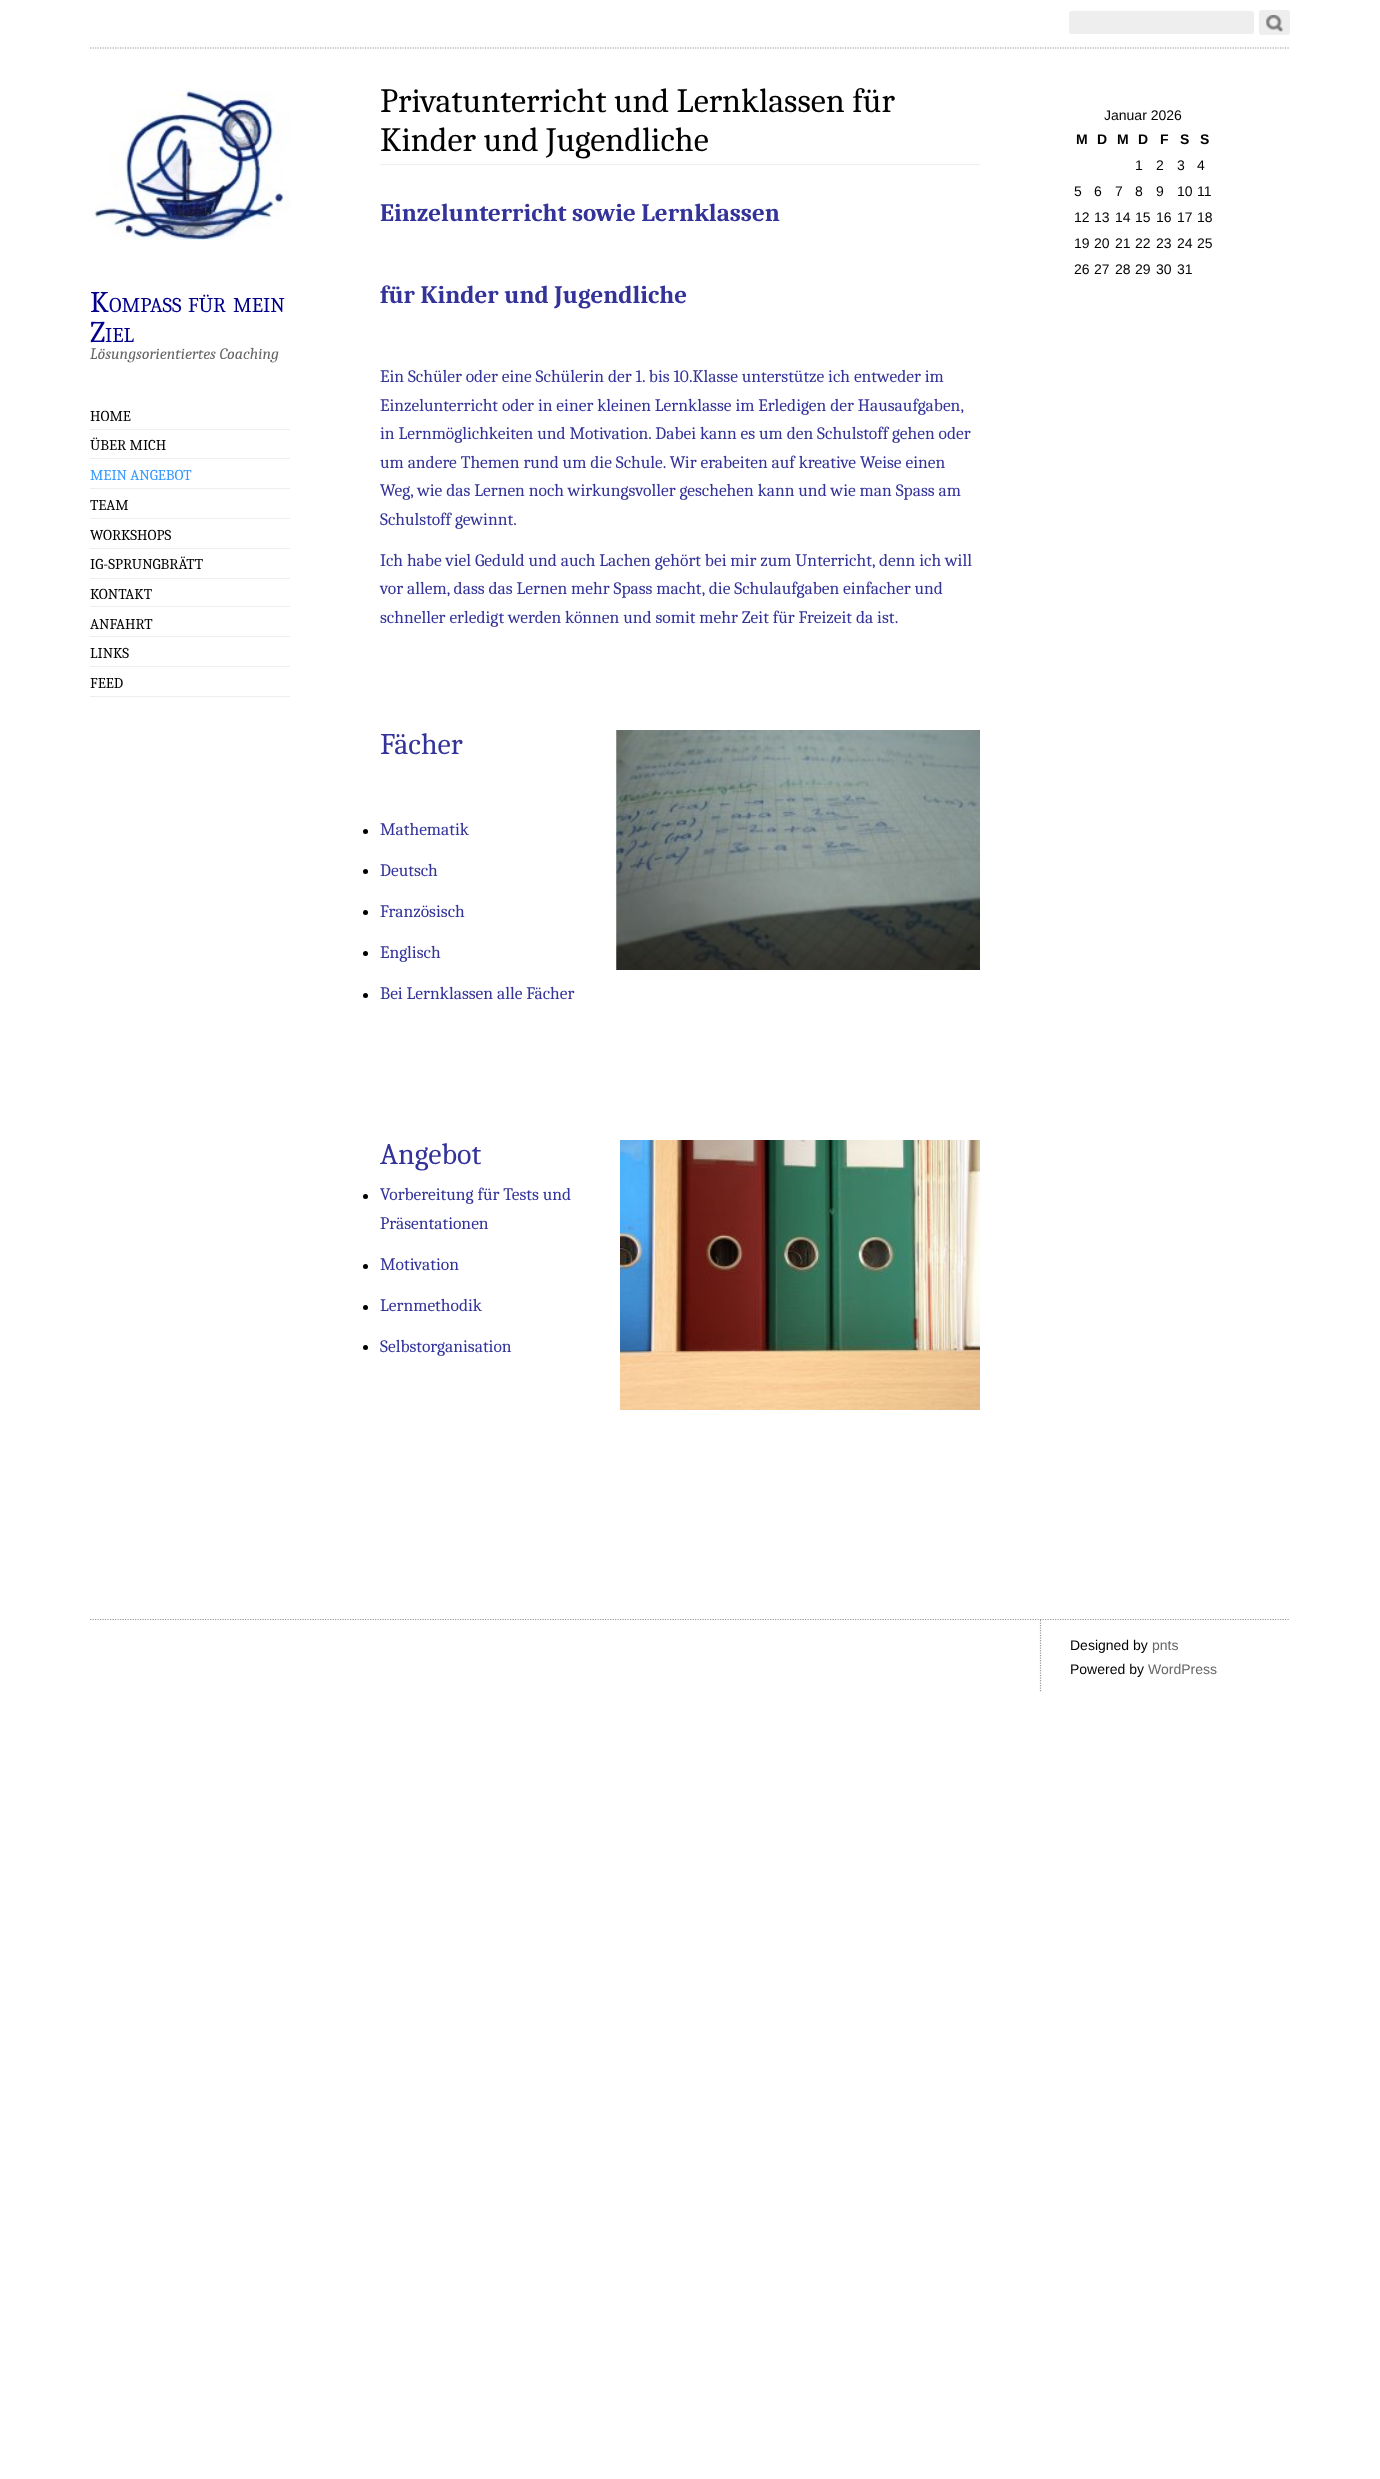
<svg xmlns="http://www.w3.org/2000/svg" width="1380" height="2479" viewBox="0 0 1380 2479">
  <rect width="100%" height="100%" fill="#ffffff"/>
  <path d="M90 48H1290" fill="none" stroke="#999999" stroke-width="1.2" stroke-dasharray="1.25 1.25"/>
  <rect x="1069" y="11" width="185" height="23" rx="2.5" fill="#eeeeee"/>
  <rect x="1259" y="10" width="31" height="25" rx="2.5" fill="#eeeeee"/>
  <image x="1266" y="15" width="17" height="17" href="img1.png"/>
  <image x="90" y="90" width="200" height="150" href="img2.png"/>
  <text x="90" y="312" font-family="Caladea" font-size="30" fill="#02008c">K</text>
  <text x="109" y="312" font-family="Caladea" font-size="21" fill="#02008c">OMPASS</text>
  <text x="188" y="312" font-family="Caladea" font-size="21" fill="#02008c">FÜR</text>
  <text x="233" y="312" font-family="Caladea" font-size="21" fill="#02008c">MEIN</text>
  <text x="90" y="342" font-family="Caladea" font-size="30" fill="#02008c">Z</text>
  <text x="105" y="342" font-family="Caladea" font-size="21" fill="#02008c">IEL</text>
  <text x="90" y="359" font-family="Caladea" font-size="16" font-style="italic" fill="#666666">Lösungsorientiertes Coaching</text>
  <rect x="90" y="429" width="200" height="1" fill="#eeeeee"/>
  <text x="90" y="421" font-family="Caladea" font-size="15" fill="#000000">HOME</text>
  <rect x="90" y="458" width="200" height="1" fill="#eeeeee"/>
  <text x="90" y="450" font-family="Caladea" font-size="15" fill="#000000">ÜBER MICH</text>
  <rect x="90" y="488" width="200" height="1" fill="#eeeeee"/>
  <text x="90" y="480" font-family="Caladea" font-size="15" fill="#3399ff">MEIN ANGEBOT</text>
  <rect x="90" y="518" width="200" height="1" fill="#eeeeee"/>
  <text x="90" y="510" font-family="Caladea" font-size="15" fill="#000000">TEAM</text>
  <rect x="90" y="548" width="200" height="1" fill="#eeeeee"/>
  <text x="90" y="540" font-family="Caladea" font-size="15" fill="#000000">WORKSHOPS</text>
  <rect x="90" y="578" width="200" height="1" fill="#eeeeee"/>
  <text x="90" y="569" font-family="Caladea" font-size="15" fill="#000000">IG-SPRUNGBRÄTT</text>
  <rect x="90" y="606" width="200" height="1" fill="#eeeeee"/>
  <text x="90" y="599" font-family="Caladea" font-size="15" fill="#000000">KONTAKT</text>
  <rect x="90" y="636" width="200" height="1" fill="#eeeeee"/>
  <text x="90" y="629" font-family="Caladea" font-size="15" fill="#000000">ANFAHRT</text>
  <rect x="90" y="666" width="200" height="1" fill="#eeeeee"/>
  <text x="90" y="658" font-family="Caladea" font-size="15" fill="#000000">LINKS</text>
  <rect x="90" y="696" width="200" height="1" fill="#eeeeee"/>
  <text x="90" y="688" font-family="Caladea" font-size="15" fill="#000000">FEED</text>
  <rect x="380" y="164" width="600" height="1" fill="#eeeeee"/>
  <text x="380" y="112" font-family="Caladea" font-size="34" fill="#000000">Privatunterricht und Lernklassen für</text>
  <text x="380" y="151" font-family="Caladea" font-size="34" fill="#000000">Kinder und Jugendliche</text>
  <text x="380" y="221" font-family="Caladea" font-size="25" font-weight="bold" fill="#333399">Einzelunterricht sowie Lernklassen</text>
  <text x="380" y="303" font-family="Caladea" font-size="25" font-weight="bold" fill="#333399">für Kinder und Jugendliche</text>
  <text x="380" y="382" font-family="Caladea" font-size="17.5" fill="#333399">Ein Schüler oder eine Schülerin der 1. bis 10.Klasse unterstütze ich entweder im</text>
  <text x="380" y="411" font-family="Caladea" font-size="17.5" fill="#333399">Einzelunterricht oder in einer kleinen Lernklasse im Erledigen der Hausaufgaben,</text>
  <text x="380" y="439" font-family="Caladea" font-size="17.5" fill="#333399">in Lernmöglichkeiten und Motivation. Dabei kann es um den Schulstoff gehen oder</text>
  <text x="380" y="468" font-family="Caladea" font-size="17.5" fill="#333399">um andere Themen rund um die Schule. Wir erabeiten auf kreative Weise einen</text>
  <text x="380" y="496" font-family="Caladea" font-size="17.5" fill="#333399">Weg, wie das Lernen noch wirkungsvoller geschehen kann und wie man Spass am</text>
  <text x="380" y="525" font-family="Caladea" font-size="17.5" fill="#333399">Schulstoff gewinnt.</text>
  <text x="380" y="566" font-family="Caladea" font-size="17.5" fill="#333399">Ich habe viel Geduld und auch Lachen gehört bei mir zum Unterricht, denn ich will</text>
  <text x="380" y="594" font-family="Caladea" font-size="17.5" fill="#333399">vor allem, dass das Lernen mehr Spass macht, die Schulaufgaben einfacher und</text>
  <text x="380" y="623" font-family="Caladea" font-size="17.5" fill="#333399">schneller erledigt werden können und somit mehr Zeit für Freizeit da ist.</text>
  <text x="380" y="754" font-family="Caladea" font-size="30" fill="#333399">Fächer</text>
  <image x="616" y="730" width="364" height="240" href="img3.png"/>
  <circle cx="365.5" cy="831.5" r="2.5" fill="#000000"/>
  <text x="380" y="835" font-family="Caladea" font-size="17.5" fill="#333399">Mathematik</text>
  <circle cx="365.5" cy="871.5" r="2.5" fill="#000000"/>
  <text x="380" y="876" font-family="Caladea" font-size="17.5" fill="#333399">Deutsch</text>
  <circle cx="365.5" cy="912.5" r="2.5" fill="#000000"/>
  <text x="380" y="917" font-family="Caladea" font-size="17.5" fill="#333399">Französisch</text>
  <circle cx="365.5" cy="953.5" r="2.5" fill="#000000"/>
  <text x="380" y="958" font-family="Caladea" font-size="17.5" fill="#333399">Englisch</text>
  <circle cx="365.5" cy="995.5" r="2.5" fill="#000000"/>
  <text x="380" y="999" font-family="Caladea" font-size="17.5" fill="#333399">Bei Lernklassen alle Fächer</text>
  <text x="380" y="1164" font-family="Caladea" font-size="30" fill="#333399">Angebot</text>
  <image x="620" y="1140" width="360" height="270" href="img4.png"/>
  <circle cx="365.5" cy="1196.5" r="2.5" fill="#000000"/>
  <text x="380" y="1200" font-family="Caladea" font-size="17.5" fill="#333399">Vorbereitung für Tests und</text>
  <text x="380" y="1229" font-family="Caladea" font-size="17.5" fill="#333399">Präsentationen</text>
  <circle cx="365.5" cy="1266.5" r="2.5" fill="#000000"/>
  <text x="380" y="1270" font-family="Caladea" font-size="17.5" fill="#333399">Motivation</text>
  <circle cx="365.5" cy="1307.5" r="2.5" fill="#000000"/>
  <text x="380" y="1311" font-family="Caladea" font-size="17.5" fill="#333399">Lernmethodik</text>
  <circle cx="365.5" cy="1347.5" r="2.5" fill="#000000"/>
  <text x="380" y="1352" font-family="Caladea" font-size="17.5" fill="#333399">Selbstorganisation</text>
  <text x="1104" y="120" font-family="Liberation Sans" font-size="14" fill="#000000">Januar 2026</text>
  <text x="1076" y="144" font-family="Liberation Sans" font-size="14" font-weight="bold" fill="#000000">M</text>
  <text x="1097" y="144" font-family="Liberation Sans" font-size="14" font-weight="bold" fill="#000000">D</text>
  <text x="1117" y="144" font-family="Liberation Sans" font-size="14" font-weight="bold" fill="#000000">M</text>
  <text x="1138" y="144" font-family="Liberation Sans" font-size="14" font-weight="bold" fill="#000000">D</text>
  <text x="1160" y="144" font-family="Liberation Sans" font-size="14" font-weight="bold" fill="#000000">F</text>
  <text x="1180" y="144" font-family="Liberation Sans" font-size="14" font-weight="bold" fill="#000000">S</text>
  <text x="1200" y="144" font-family="Liberation Sans" font-size="14" font-weight="bold" fill="#000000">S</text>
  <text x="1135" y="170" font-family="Liberation Sans" font-size="14" fill="#000000">1</text>
  <text x="1156" y="170" font-family="Liberation Sans" font-size="14" fill="#000000">2</text>
  <text x="1177" y="170" font-family="Liberation Sans" font-size="14" fill="#000000">3</text>
  <text x="1197" y="170" font-family="Liberation Sans" font-size="14" fill="#000000">4</text>
  <text x="1074" y="196" font-family="Liberation Sans" font-size="14" fill="#000000">5</text>
  <text x="1094" y="196" font-family="Liberation Sans" font-size="14" fill="#000000">6</text>
  <text x="1115" y="196" font-family="Liberation Sans" font-size="14" fill="#000000">7</text>
  <text x="1135" y="196" font-family="Liberation Sans" font-size="14" fill="#000000">8</text>
  <text x="1156" y="196" font-family="Liberation Sans" font-size="14" fill="#000000">9</text>
  <text x="1177" y="196" font-family="Liberation Sans" font-size="14" fill="#000000">10</text>
  <text x="1197" y="196" font-family="Liberation Sans" font-size="14" fill="#000000">11</text>
  <text x="1074" y="222" font-family="Liberation Sans" font-size="14" fill="#000000">12</text>
  <text x="1094" y="222" font-family="Liberation Sans" font-size="14" fill="#000000">13</text>
  <text x="1115" y="222" font-family="Liberation Sans" font-size="14" fill="#000000">14</text>
  <text x="1135" y="222" font-family="Liberation Sans" font-size="14" fill="#000000">15</text>
  <text x="1156" y="222" font-family="Liberation Sans" font-size="14" fill="#000000">16</text>
  <text x="1177" y="222" font-family="Liberation Sans" font-size="14" fill="#000000">17</text>
  <text x="1197" y="222" font-family="Liberation Sans" font-size="14" fill="#000000">18</text>
  <text x="1074" y="248" font-family="Liberation Sans" font-size="14" fill="#000000">19</text>
  <text x="1094" y="248" font-family="Liberation Sans" font-size="14" fill="#000000">20</text>
  <text x="1115" y="248" font-family="Liberation Sans" font-size="14" fill="#000000">21</text>
  <text x="1135" y="248" font-family="Liberation Sans" font-size="14" fill="#000000">22</text>
  <text x="1156" y="248" font-family="Liberation Sans" font-size="14" fill="#000000">23</text>
  <text x="1177" y="248" font-family="Liberation Sans" font-size="14" fill="#000000">24</text>
  <text x="1197" y="248" font-family="Liberation Sans" font-size="14" fill="#000000">25</text>
  <text x="1074" y="274" font-family="Liberation Sans" font-size="14" fill="#000000">26</text>
  <text x="1094" y="274" font-family="Liberation Sans" font-size="14" fill="#000000">27</text>
  <text x="1115" y="274" font-family="Liberation Sans" font-size="14" fill="#000000">28</text>
  <text x="1135" y="274" font-family="Liberation Sans" font-size="14" fill="#000000">29</text>
  <text x="1156" y="274" font-family="Liberation Sans" font-size="14" fill="#000000">30</text>
  <text x="1177" y="274" font-family="Liberation Sans" font-size="14" fill="#000000">31</text>
  <path d="M90 1619.5H1290" fill="none" stroke="#999999" stroke-width="1.2" stroke-dasharray="1.25 1.25"/>
  <path d="M1040.5 1620V1692.5" fill="none" stroke="#999999" stroke-width="1.2" stroke-dasharray="1.25 1.25"/>
  <text x="1070" y="1650" font-family="Liberation Sans" font-size="14" fill="#000000">Designed by</text>
  <text x="1152" y="1650" font-family="Liberation Sans" font-size="14" fill="#666666">pnts</text>
  <text x="1070" y="1674" font-family="Liberation Sans" font-size="14" fill="#000000">Powered by</text>
  <text x="1148" y="1674" font-family="Liberation Sans" font-size="14" fill="#666666">WordPress</text>
</svg>
